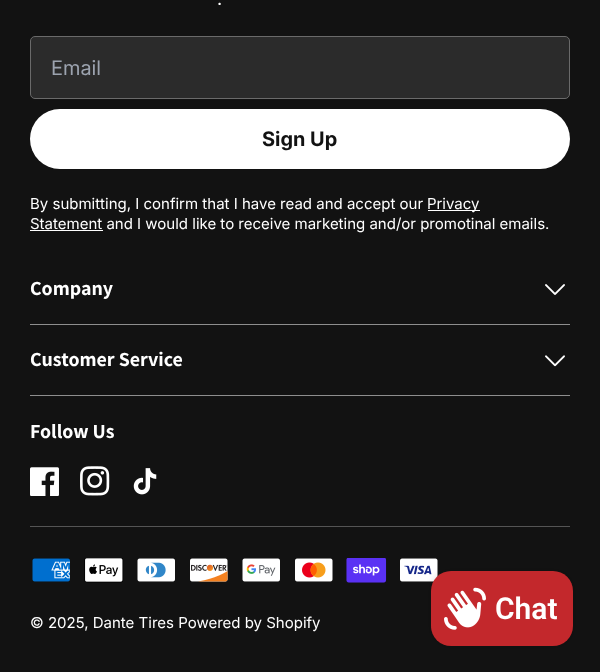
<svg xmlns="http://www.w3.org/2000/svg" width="600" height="672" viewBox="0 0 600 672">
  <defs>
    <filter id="blur1" x="-50%" y="-200%" width="200%" height="500%"><feGaussianBlur stdDeviation="3"/></filter>
  </defs>
  <rect width="100%" height="100%" fill="#121212"/>
  <text x="217" y="5" font-family="Inter" font-size="18" fill="#ffffff">.</text>
  <rect x="30.5" y="36.5" width="539" height="62" rx="4.5" fill="#2b2b2b" stroke="#6a6a6a"/>
  <text x="51" y="75" font-family="'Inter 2'" font-size="20" fill="#9ca3af">Email</text>
  <rect x="30" y="109" width="540" height="60" rx="30" fill="#ffffff"/>
  <text x="262" y="146" font-family="Inter" font-size="20" font-weight="bold" fill="#121212">Sign Up</text>
  <text x="30" y="209" font-family="Inter" font-size="15" fill="#ffffff">By submitting, I confirm that I have read and accept our</text>
  <rect x="428" y="210" width="52" height="1" fill="#ffffff"/>
  <text x="427" y="209" font-family="Inter" font-size="15" fill="#ffffff">Privacy</text>
  <rect x="30" y="230" width="73" height="1" fill="#ffffff"/>
  <text x="30" y="229" font-family="Inter" font-size="15" fill="#ffffff">Statement and I would like to receive marketing and/or promotinal emails.</text>
  <rect x="30" y="324" width="540" height="1" fill="#8e8e8e"/>
  <text x="30" y="295" font-family="Assistant" font-size="20" font-weight="bold" fill="#ffffff">Company</text>
  <image x="545" y="284" width="20" height="11" href="img1.png"/>
  <rect x="30" y="395" width="540" height="1" fill="#8e8e8e"/>
  <text x="30" y="366" font-family="Assistant" font-size="20" font-weight="bold" fill="#ffffff">Customer Service</text>
  <image x="545" y="355" width="20" height="12" href="img2.png"/>
  <text x="30" y="438" font-family="Assistant" font-size="20" font-weight="bold" fill="#ffffff">Follow Us</text>
  <image x="30" y="467" width="29" height="29" href="img3.png"/>
  <image x="80" y="466" width="30" height="30" href="img4.png"/>
  <image x="133" y="468" width="24" height="27" href="img5.png"/>
  <rect x="30" y="526" width="540" height="1" fill="#545454"/>
  <image x="32" y="558" width="38" height="24" href="img6.png"/>
  <image x="84" y="558" width="40" height="25" href="img7.png"/>
  <image x="137" y="558" width="38" height="24" href="img8.png"/>
  <image x="190" y="558" width="38" height="24" href="img9.png"/>
  <image x="242" y="558" width="38" height="24" href="img10.png"/>
  <image x="295" y="558" width="38" height="24" href="img11.png"/>
  <image x="346" y="558" width="41" height="25" href="img12.png"/>
  <image x="400" y="558" width="38" height="24" href="img13.png"/>
  <text x="30" y="628" font-family="Inter" font-size="15" fill="#ffffff">© 2025, Dante Tires Powered by Shopify</text>
  <rect x="431" y="571" width="142" height="75" rx="20" fill="#000000" fill-opacity="0.15" filter="url(#blur1)"/>
  <rect x="431" y="571" width="142" height="75" rx="20" fill="#c3282c"/>
  <image x="444" y="587" width="42" height="43" href="img14.png"/>
  <text x="495" y="619" font-family="Roboto" font-size="30" font-weight="600" fill="#ffffff">Chat</text>
</svg>
